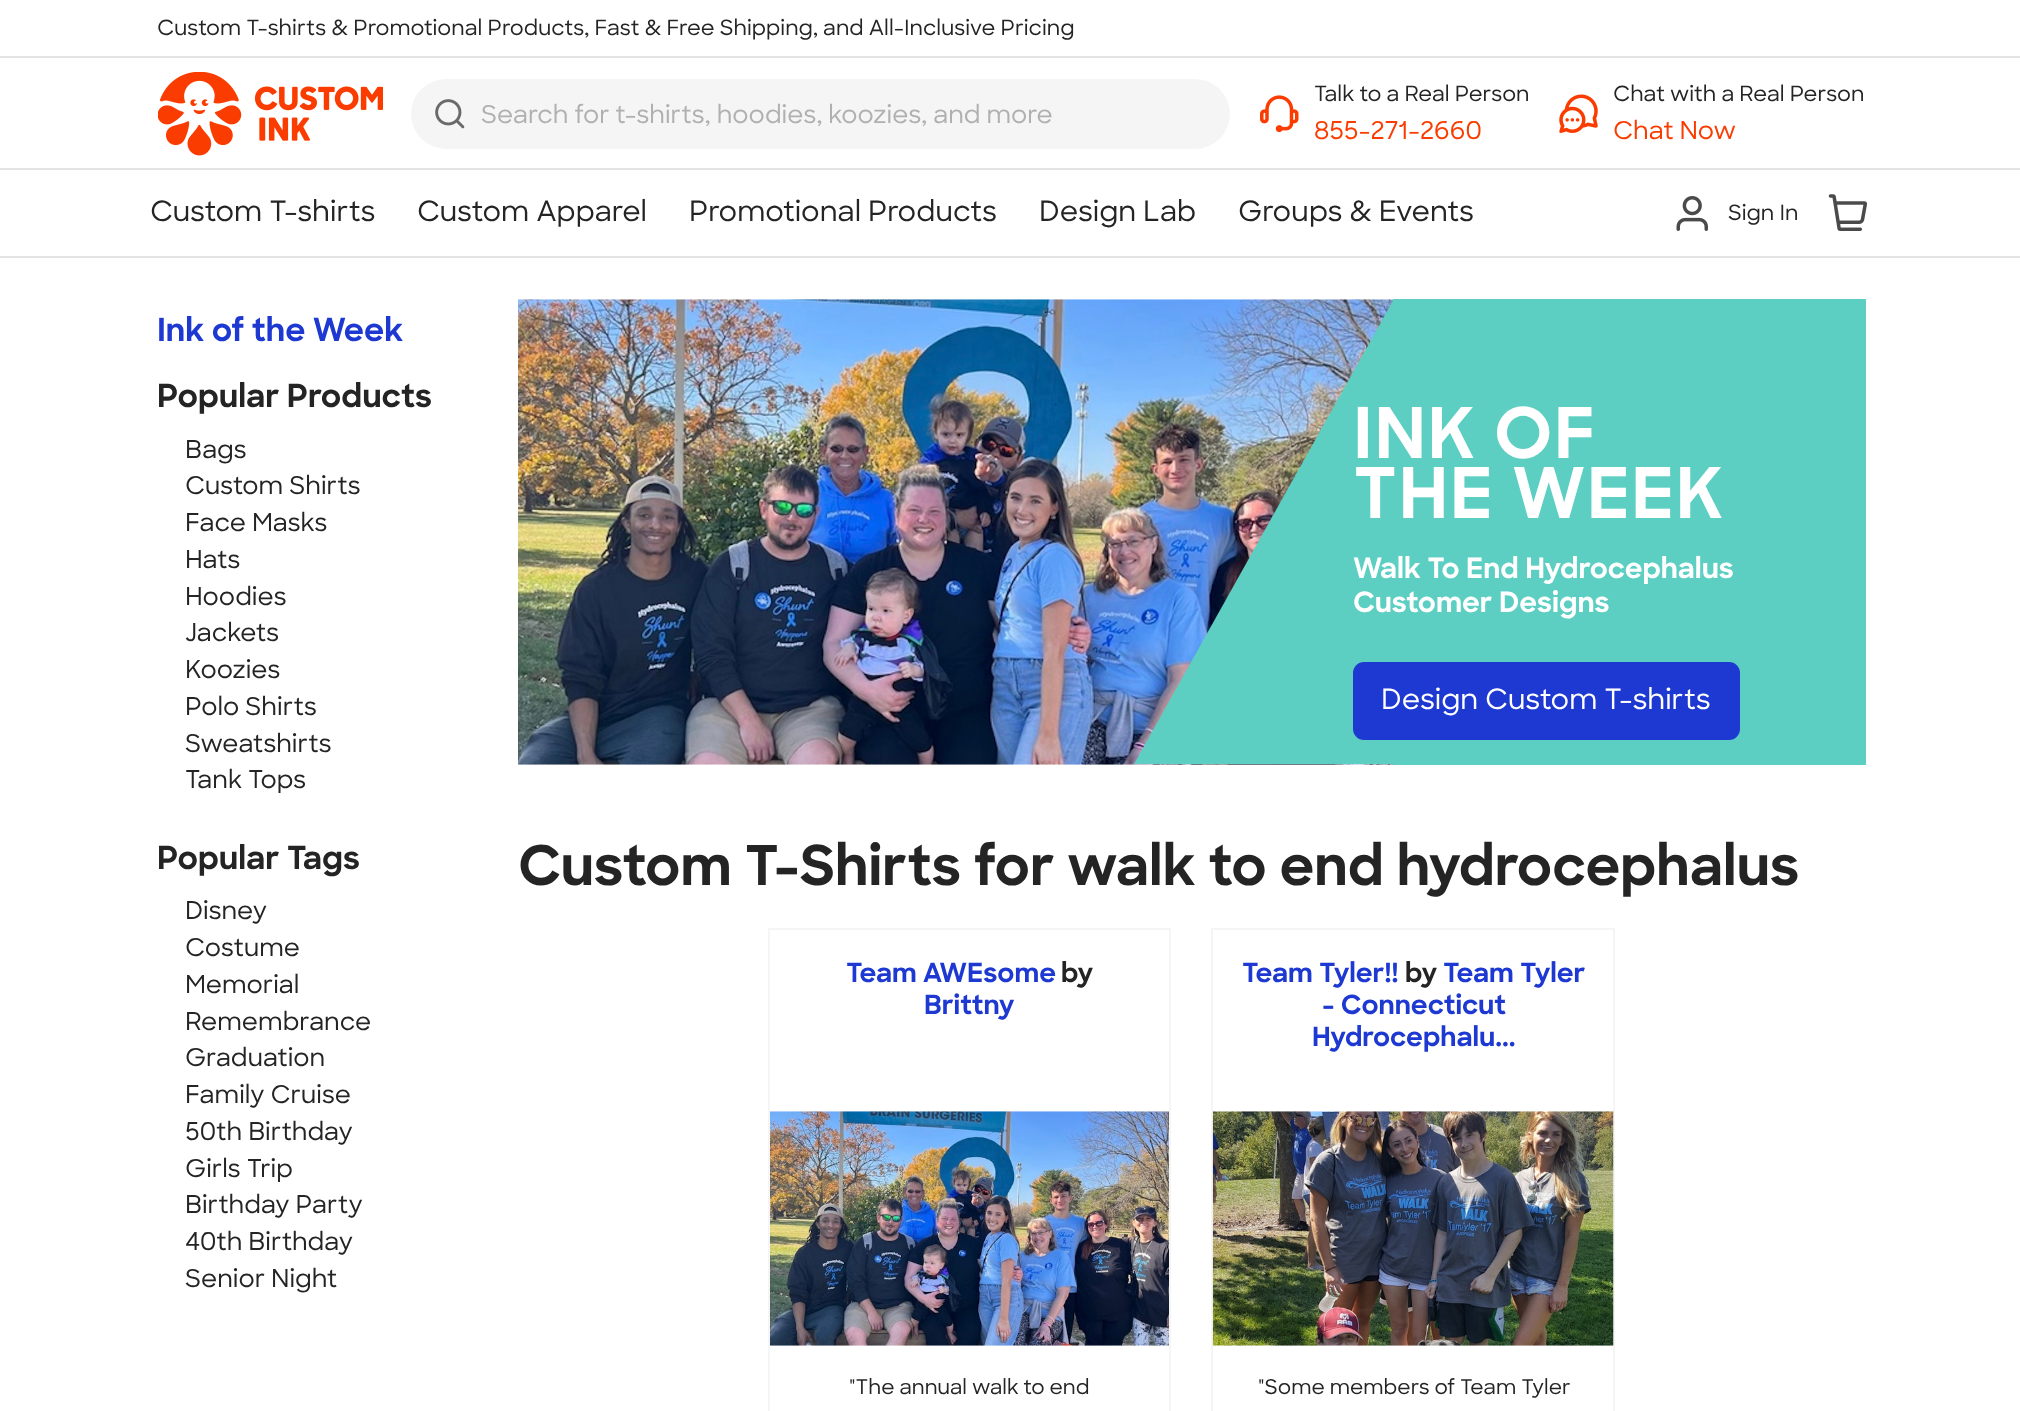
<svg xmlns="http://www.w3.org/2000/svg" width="2020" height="1411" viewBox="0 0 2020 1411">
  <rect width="100%" height="100%" fill="#ffffff"/>
  <rect x="0" y="56" width="2020" height="2" fill="#e3e3e3"/>
  <text x="157" y="35" font-family="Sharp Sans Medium" font-size="21" font-weight="500" fill="#242424">Custom T-shirts &amp; Promotional Products, Fast &amp; Free Shipping, and All-Inclusive Pricing</text>
  <rect x="0" y="168" width="2020" height="2" fill="#e3e3e3"/>
  <image x="158" y="72" width="225" height="84" href="img1.png"/>
  <rect x="411" y="79" width="819" height="70" rx="35" fill="#f5f5f5"/>
  <image x="435" y="99" width="30" height="30" href="img2.png"/>
  <text x="481" y="123" font-family="Sharp Sans Medium" font-size="24.5" font-weight="500" fill="#b0b0b0">Search for t-shirts, hoodies, koozies, and more</text>
  <image x="1260" y="95" width="39" height="38" href="img3.png"/>
  <text x="1314" y="101" font-family="Sharp Sans Medium" font-size="21" font-weight="500" fill="#242424">Talk to a Real Person</text>
  <text x="1314" y="139" font-family="Sharp Sans Medium" font-size="24.5" font-weight="500" fill="#fa3c00">855-271-2660</text>
  <image x="1559" y="94" width="39" height="39" href="img4.png"/>
  <text x="1613" y="101" font-family="Sharp Sans Medium" font-size="21" font-weight="500" fill="#242424">Chat with a Real Person</text>
  <text x="1613" y="139" font-family="Sharp Sans Medium" font-size="24.5" font-weight="500" fill="#fa3c00">Chat Now</text>
  <rect x="0" y="256" width="2020" height="2" fill="#e3e3e3"/>
  <text x="150" y="221" font-family="Sharp Sans Medium" font-size="28" font-weight="500" fill="#242424">Custom T-shirts</text>
  <text x="417" y="221" font-family="Sharp Sans Medium" font-size="28" font-weight="500" fill="#242424">Custom Apparel</text>
  <text x="689" y="221" font-family="Sharp Sans Medium" font-size="28" font-weight="500" fill="#242424">Promotional Products</text>
  <text x="1039" y="221" font-family="Sharp Sans Medium" font-size="28" font-weight="500" fill="#242424">Design Lab</text>
  <text x="1238" y="221" font-family="Sharp Sans Medium" font-size="28" font-weight="500" fill="#242424">Groups &amp; Events</text>
  <image x="1676" y="196" width="32" height="35" href="img5.png"/>
  <text x="1728" y="220" font-family="Sharp Sans Medium" font-size="21" font-weight="500" fill="#242424">Sign In</text>
  <image x="1828" y="194" width="39" height="37" href="img6.png"/>
  <text x="157" y="341" font-family="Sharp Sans" font-size="31.75" font-weight="bold" fill="#1e39d2">Ink of the Week</text>
  <text x="157" y="407" font-family="Sharp Sans" font-size="31.75" font-weight="bold" fill="#242424">Popular Products</text>
  <text x="185" y="458" font-family="Sharp Sans Medium" font-size="24.5" font-weight="500" fill="#242424">Bags</text>
  <text x="185" y="494" font-family="Sharp Sans Medium" font-size="24.5" font-weight="500" fill="#242424">Custom Shirts</text>
  <text x="185" y="531" font-family="Sharp Sans Medium" font-size="24.5" font-weight="500" fill="#242424">Face Masks</text>
  <text x="185" y="568" font-family="Sharp Sans Medium" font-size="24.5" font-weight="500" fill="#242424">Hats</text>
  <text x="185" y="605" font-family="Sharp Sans Medium" font-size="24.5" font-weight="500" fill="#242424">Hoodies</text>
  <text x="185" y="641" font-family="Sharp Sans Medium" font-size="24.5" font-weight="500" fill="#242424">Jackets</text>
  <text x="185" y="678" font-family="Sharp Sans Medium" font-size="24.5" font-weight="500" fill="#242424">Koozies</text>
  <text x="185" y="715" font-family="Sharp Sans Medium" font-size="24.5" font-weight="500" fill="#242424">Polo Shirts</text>
  <text x="185" y="752" font-family="Sharp Sans Medium" font-size="24.5" font-weight="500" fill="#242424">Sweatshirts</text>
  <text x="185" y="788" font-family="Sharp Sans Medium" font-size="24.5" font-weight="500" fill="#242424">Tank Tops</text>
  <text x="157" y="869" font-family="Sharp Sans" font-size="31.75" font-weight="bold" fill="#242424">Popular Tags</text>
  <text x="185" y="919" font-family="Sharp Sans Medium" font-size="24.5" font-weight="500" fill="#242424">Disney</text>
  <text x="185" y="956" font-family="Sharp Sans Medium" font-size="24.5" font-weight="500" fill="#242424">Costume</text>
  <text x="185" y="993" font-family="Sharp Sans Medium" font-size="24.5" font-weight="500" fill="#242424">Memorial</text>
  <text x="185" y="1030" font-family="Sharp Sans Medium" font-size="24.5" font-weight="500" fill="#242424">Remembrance</text>
  <text x="185" y="1066" font-family="Sharp Sans Medium" font-size="24.5" font-weight="500" fill="#242424">Graduation</text>
  <text x="185" y="1103" font-family="Sharp Sans Medium" font-size="24.5" font-weight="500" fill="#242424">Family Cruise</text>
  <text x="185" y="1140" font-family="Sharp Sans Medium" font-size="24.5" font-weight="500" fill="#242424">50th Birthday</text>
  <text x="185" y="1177" font-family="Sharp Sans Medium" font-size="24.5" font-weight="500" fill="#242424">Girls Trip</text>
  <text x="185" y="1213" font-family="Sharp Sans Medium" font-size="24.5" font-weight="500" fill="#242424">Birthday Party</text>
  <text x="185" y="1250" font-family="Sharp Sans Medium" font-size="24.5" font-weight="500" fill="#242424">40th Birthday</text>
  <text x="185" y="1287" font-family="Sharp Sans Medium" font-size="24.5" font-weight="500" fill="#242424">Senior Night</text>
  <image x="518" y="299" width="875" height="466" href="img7.png"/>
  <rect x="1393" y="299" width="473" height="466" fill="#5ccfc2"/>
  <path d="M1394 299V764H1134Z" fill="#5ccfc2"/>
  <text x="1353" y="458" font-family="Sharp Sans" font-size="70" font-weight="bold" letter-spacing="1.5" fill="#ffffff">INK OF</text>
  <text x="1353" y="518" font-family="Sharp Sans" font-size="70" font-weight="bold" letter-spacing="1.5" fill="#ffffff">THE WEEK</text>
  <text x="1353" y="578" font-family="Sharp Sans" font-size="28" font-weight="bold" fill="#ffffff">Walk To End Hydrocephalus</text>
  <text x="1353" y="612" font-family="Sharp Sans" font-size="28" font-weight="bold" fill="#ffffff">Customer Designs</text>
  <rect x="1353" y="662" width="387" height="78" rx="11" fill="#1e39d2"/>
  <text x="1381" y="709" font-family="Sharp Sans Medium" font-size="28" font-weight="500" fill="#ffffff">Design Custom T-shirts</text>
  <text x="518" y="885" font-family="Sharp Sans" font-size="54.9" font-weight="bold" fill="#242424">Custom T-Shirts for walk to end hydrocephalus</text>
  <rect x="769" y="929" width="401" height="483" fill="none" stroke="#f5f5f5" stroke-width="2"/>
  <text x="846" y="982" font-family="Sharp Sans" font-size="26.5" font-weight="bold" fill="#1e39d2">Team AWEsome</text>
  <text x="1061" y="982" font-family="Sharp Sans" font-size="26.5" font-weight="bold" fill="#242424">by</text>
  <text x="924" y="1014" font-family="Sharp Sans" font-size="26.5" font-weight="bold" fill="#1e39d2">Brittny</text>
  <image x="770" y="1111" width="399" height="235" href="img8.png"/>
  <text x="849" y="1394" font-family="Sharp Sans Medium" font-size="20.2" font-weight="500" fill="#242424">"The annual walk to end</text>
  <rect x="1212" y="929" width="402" height="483" fill="none" stroke="#f5f5f5" stroke-width="2"/>
  <text x="1242" y="982" font-family="Sharp Sans" font-size="26.5" font-weight="bold" fill="#1e39d2">Team Tyler!!</text>
  <text x="1405" y="982" font-family="Sharp Sans" font-size="26.5" font-weight="bold" fill="#242424">by</text>
  <text x="1443" y="982" font-family="Sharp Sans" font-size="26.5" font-weight="bold" fill="#1e39d2">Team Tyler</text>
  <text x="1322" y="1014" font-family="Sharp Sans" font-size="26.5" font-weight="bold" fill="#1e39d2">- Connecticut</text>
  <text x="1312" y="1046" font-family="Sharp Sans" font-size="26.5" font-weight="bold" fill="#1e39d2">Hydrocephalu...</text>
  <image x="1212" y="1111" width="402" height="235" href="img9.png"/>
  <text x="1258" y="1394" font-family="Sharp Sans Medium" font-size="20.2" font-weight="500" fill="#242424">"Some members of Team Tyler</text>
</svg>
